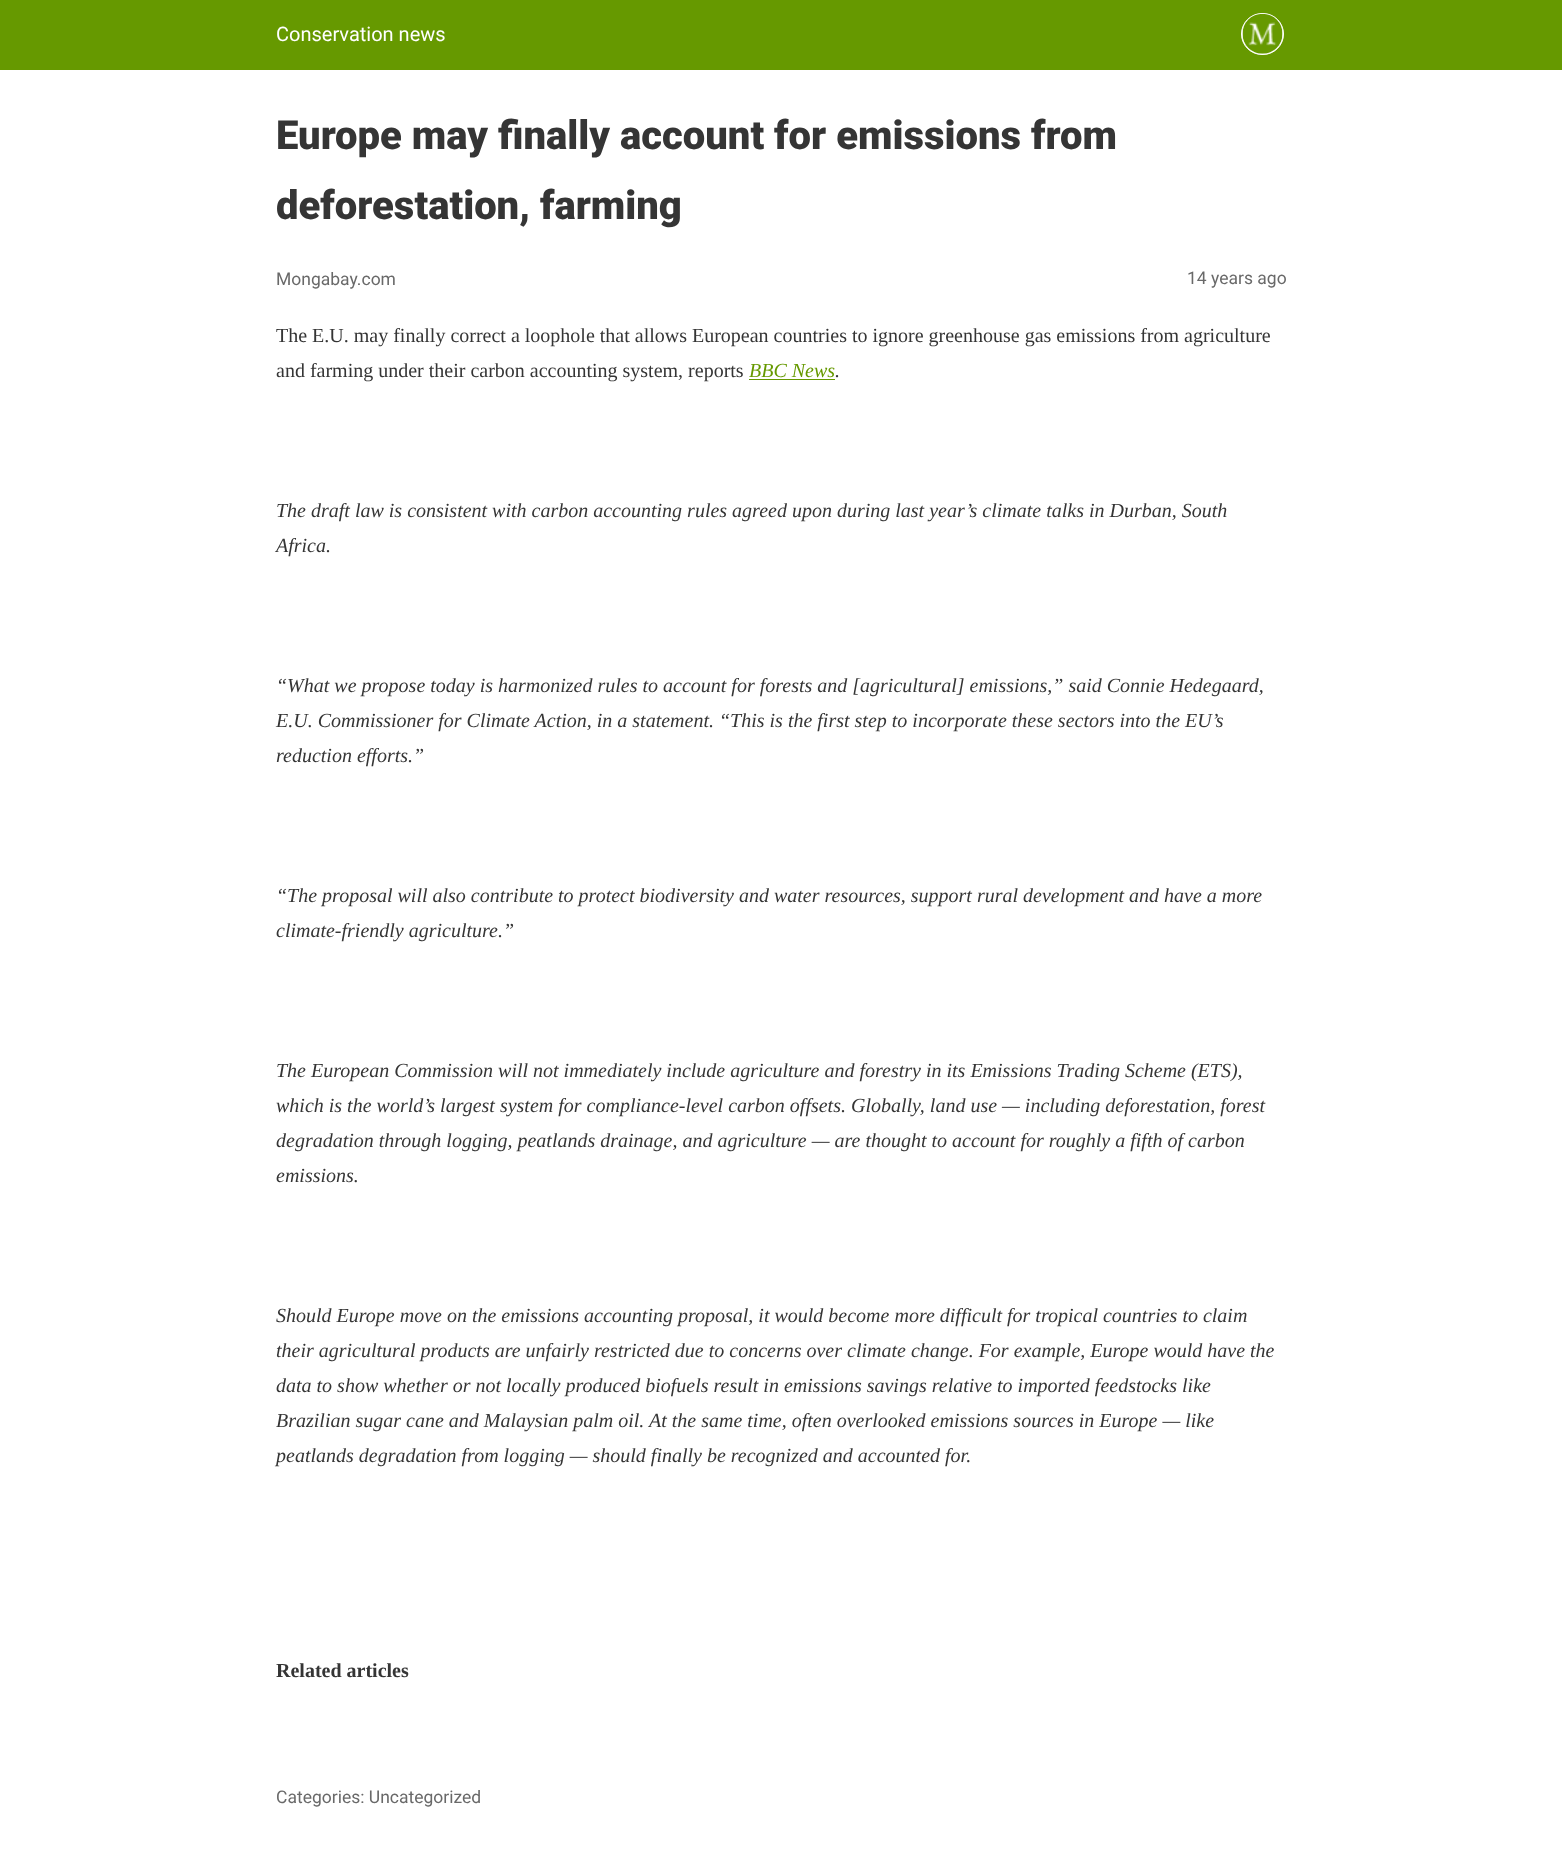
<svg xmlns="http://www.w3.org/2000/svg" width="1562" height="1849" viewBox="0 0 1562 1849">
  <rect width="100%" height="100%" fill="#ffffff"/>
  <rect x="0" y="0" width="1562" height="70" fill="#669900"/>
  <text x="276" y="41" font-family="Roboto" font-size="20" fill="#ffffff">Conservation news</text>
  <rect x="1241.5" y="13.5" width="42" height="41" rx="20.5" fill="#ffffff" stroke="#ffffff"/>
  <image x="1242" y="13" width="41" height="41" href="img1.png"/>
  <text x="276" y="149" font-family="Roboto" font-size="40" font-weight="900" fill="#353535">Europe may finally account for emissions from</text>
  <text x="276" y="219" font-family="Roboto" font-size="40" font-weight="900" fill="#353535">deforestation, farming</text>
  <text x="276" y="285" font-family="Roboto" font-size="17.5" fill="#696969">Mongabay.com</text>
  <text x="1187" y="284" font-family="Roboto" font-size="17.5" fill="#696969">14 years ago</text>
  <text x="276" y="342" font-family="Liberation Serif" font-size="20" fill="#353535">The E.U. may finally correct a loophole that allows European countries to ignore greenhouse gas emissions from agriculture</text>
  <text x="276" y="377" font-family="Liberation Serif" font-size="20" fill="#353535">and farming under their carbon accounting system, reports</text>
  <text x="749" y="377" font-family="Liberation Serif" font-size="20" font-style="italic" fill="#669900">BBC News</text>
  <text x="835" y="377" font-family="Liberation Serif" font-size="20" font-style="italic" fill="#353535">.</text>
  <rect x="749" y="379" width="86" height="1" fill="#669900"/>
  <text x="276" y="517" font-family="Liberation Serif" font-size="20" font-style="italic" fill="#353535">The draft law is consistent with carbon accounting rules agreed upon during last year’s climate talks in Durban, South</text>
  <text x="276" y="552" font-family="Liberation Serif" font-size="20" font-style="italic" fill="#353535">Africa.</text>
  <text x="276" y="692" font-family="Liberation Serif" font-size="20" font-style="italic" fill="#353535">“What we propose today is harmonized rules to account for forests and [agricultural] emissions,” said Connie Hedegaard,</text>
  <text x="276" y="727" font-family="Liberation Serif" font-size="20" font-style="italic" fill="#353535">E.U. Commissioner for Climate Action, in a statement. “This is the first step to incorporate these sectors into the EU’s</text>
  <text x="276" y="762" font-family="Liberation Serif" font-size="20" font-style="italic" fill="#353535">reduction efforts.”</text>
  <text x="276" y="902" font-family="Liberation Serif" font-size="20" font-style="italic" fill="#353535">“The proposal will also contribute to protect biodiversity and water resources, support rural development and have a more</text>
  <text x="276" y="937" font-family="Liberation Serif" font-size="20" font-style="italic" fill="#353535">climate-friendly agriculture.”</text>
  <text x="276" y="1077" font-family="Liberation Serif" font-size="20" font-style="italic" fill="#353535">The European Commission will not immediately include agriculture and forestry in its Emissions Trading Scheme (ETS),</text>
  <text x="276" y="1112" font-family="Liberation Serif" font-size="20" font-style="italic" fill="#353535">which is the world’s largest system for compliance-level carbon offsets. Globally, land use — including deforestation, forest</text>
  <text x="276" y="1147" font-family="Liberation Serif" font-size="20" font-style="italic" fill="#353535">degradation through logging, peatlands drainage, and agriculture — are thought to account for roughly a fifth of carbon</text>
  <text x="276" y="1182" font-family="Liberation Serif" font-size="20" font-style="italic" fill="#353535">emissions.</text>
  <text x="276" y="1322" font-family="Liberation Serif" font-size="20" font-style="italic" fill="#353535">Should Europe move on the emissions accounting proposal, it would become more difficult for tropical countries to claim</text>
  <text x="276" y="1357" font-family="Liberation Serif" font-size="20" font-style="italic" fill="#353535">their agricultural products are unfairly restricted due to concerns over climate change. For example, Europe would have the</text>
  <text x="276" y="1392" font-family="Liberation Serif" font-size="20" font-style="italic" fill="#353535">data to show whether or not locally produced biofuels result in emissions savings relative to imported feedstocks like</text>
  <text x="276" y="1427" font-family="Liberation Serif" font-size="20" font-style="italic" fill="#353535">Brazilian sugar cane and Malaysian palm oil.</text>
  <text x="649" y="1427" font-family="Liberation Serif" font-size="20" font-style="italic" fill="#353535">At the same time, often overlooked emissions sources in Europe — like</text>
  <text x="276" y="1462" font-family="Liberation Serif" font-size="20" font-style="italic" fill="#353535">peatlands degradation from logging — should finally be recognized and accounted for.</text>
  <text x="276" y="1677" font-family="Liberation Serif" font-size="20" font-weight="bold" fill="#353535">Related articles</text>
  <text x="276" y="1803" font-family="Roboto" font-size="17.5" fill="#696969">Categories: Uncategorized</text>
</svg>
